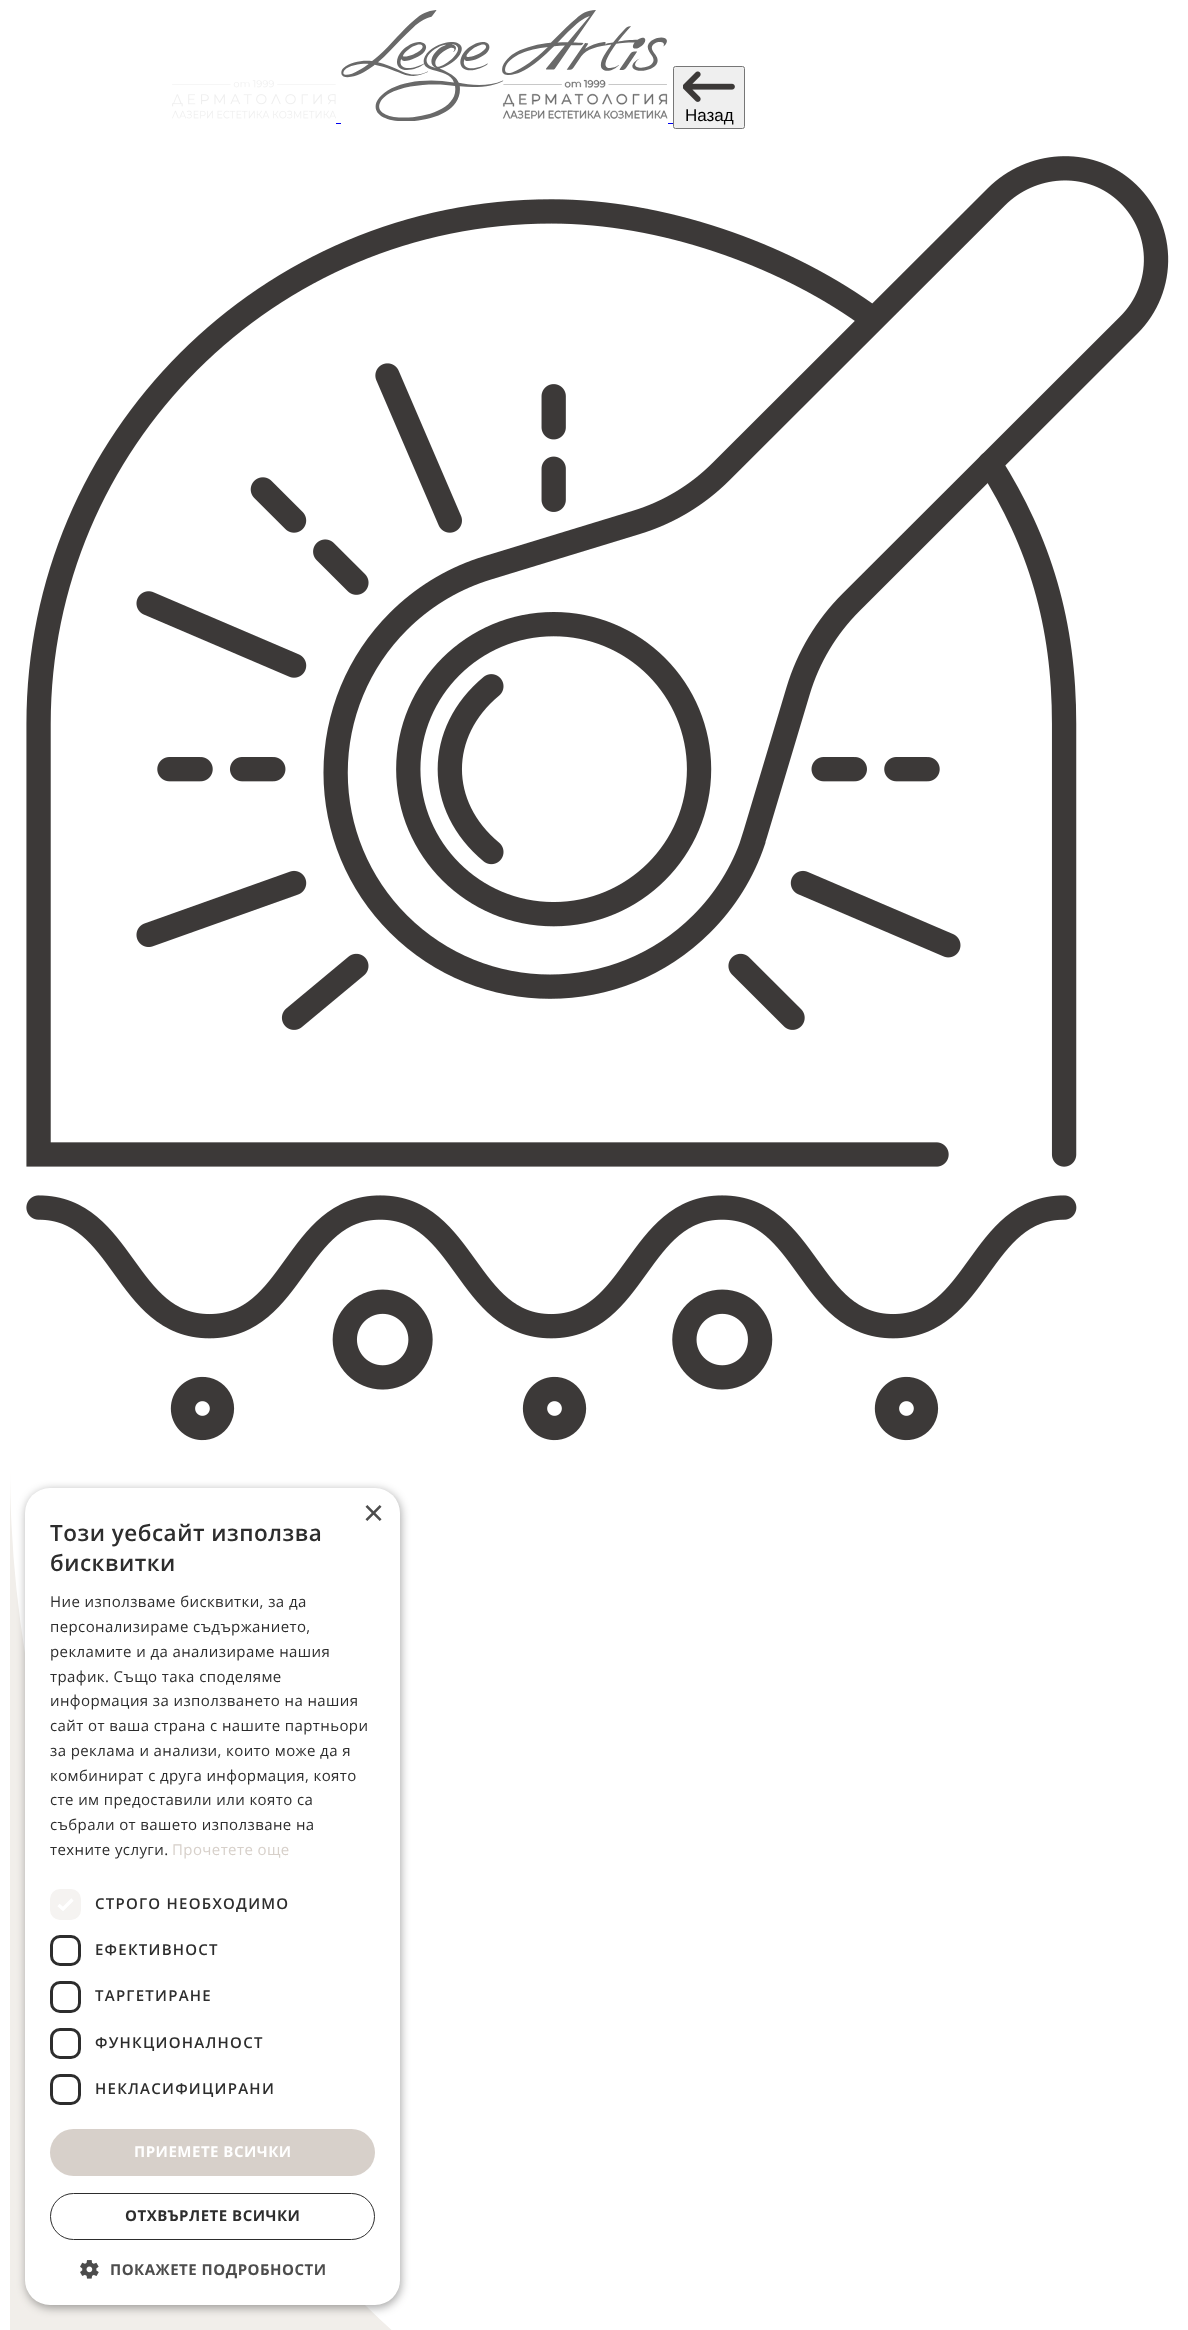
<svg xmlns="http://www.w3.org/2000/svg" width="1188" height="2330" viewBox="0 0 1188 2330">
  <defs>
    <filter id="blur1" x="-50%" y="-200%" width="200%" height="500%"><feGaussianBlur stdDeviation="5"/></filter>
  </defs>
  <rect width="100%" height="100%" fill="#ffffff"/>
  <image x="172" y="80" width="164" height="39" href="img1.png"/>
  <rect x="336" y="123" width="5" height="1" fill="#0000ee"/>
  <image x="341" y="10" width="327" height="111" href="img2.png"/>
  <rect x="668" y="123" width="5" height="1" fill="#0000ee"/>
  <rect x="673.5" y="66.5" width="71" height="62" rx="2" fill="#efefef" stroke="#767676"/>
  <image x="683" y="71" width="52" height="31" href="img3.png"/>
  <text x="685" y="121" font-family="Liberation Sans" font-size="17" fill="#000000">Назад</text>
  <image x="26" y="156" width="1143" height="1285" href="img4.png"/>
  <path d="M1179 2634H10V1465C10 2112 532 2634 1179 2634Z" fill="#f1eeea"/>
  <rect x="26" y="1490" width="375" height="818" rx="25" fill="#000000" fill-opacity="0.35" filter="url(#blur1)"/>
  <rect x="25" y="1488" width="375" height="817" rx="25" fill="#ffffff"/>
  <text x="363" y="1525" font-family="Liberation Sans" font-size="36" fill="#4d4d4d">×</text>
  <text x="50" y="1541" font-family="Open Sans" font-size="22.5" font-weight="600" letter-spacing="0.5" fill="#2d2d2d">Този уебсайт използва</text>
  <text x="50" y="1571" font-family="Open Sans" font-size="22.5" font-weight="600" letter-spacing="0.5" fill="#2d2d2d">бисквитки</text>
  <text x="50" y="1607" font-family="Open Sans" font-size="15" letter-spacing="0.4" fill="#2d2d2d">Ние използваме бисквитки, за да</text>
  <text x="50" y="1632" font-family="Open Sans" font-size="15" letter-spacing="0.4" fill="#2d2d2d">персонализираме съдържанието,</text>
  <text x="50" y="1657" font-family="Open Sans" font-size="15" letter-spacing="0.4" fill="#2d2d2d">рекламите и да анализираме нашия</text>
  <text x="50" y="1682" font-family="Open Sans" font-size="15" letter-spacing="0.4" fill="#2d2d2d">трафик. Също така споделяме</text>
  <text x="50" y="1706" font-family="Open Sans" font-size="15" letter-spacing="0.4" fill="#2d2d2d">информация за използването на нашия</text>
  <text x="50" y="1731" font-family="Open Sans" font-size="15" letter-spacing="0.4" fill="#2d2d2d">сайт от ваша страна с нашите партньори</text>
  <text x="50" y="1756" font-family="Open Sans" font-size="15" letter-spacing="0.4" fill="#2d2d2d">за реклама и анализи, които може да я</text>
  <text x="50" y="1781" font-family="Open Sans" font-size="15" letter-spacing="0.4" fill="#2d2d2d">комбинират с друга информация, която</text>
  <text x="50" y="1805" font-family="Open Sans" font-size="15" letter-spacing="0.4" fill="#2d2d2d">сте им предоставили или която са</text>
  <text x="50" y="1830" font-family="Open Sans" font-size="15" letter-spacing="0.4" fill="#2d2d2d">събрали от вашето използване на</text>
  <text x="50" y="1855" font-family="Open Sans" font-size="15" letter-spacing="0.4" fill="#2d2d2d">техните услуги.</text>
  <text x="172" y="1855" font-family="Open Sans" font-size="15" letter-spacing="0.4" fill="#d7d0ca">Прочетете още</text>
  <rect x="50" y="1889" width="31" height="31" rx="10" fill="#f5f3f1"/>
  <path d="M58.5 1905L63 1909L72.5 1899.5" fill="none" stroke="#ffffff" stroke-width="3.3"/>
  <text x="95" y="1909" font-family="Open Sans" font-size="15" font-weight="600" letter-spacing="1.25" fill="#2d2d2d">СТРОГО НЕОБХОДИМО</text>
  <rect x="51.5" y="1936.5" width="28" height="28" rx="8.5" fill="none" stroke="#2d2d2d" stroke-width="3"/>
  <text x="95" y="1955" font-family="Open Sans" font-size="15" font-weight="600" letter-spacing="1.25" fill="#2d2d2d">ЕФЕКТИВНОСТ</text>
  <rect x="51.5" y="1982.5" width="28" height="29" rx="8.5" fill="none" stroke="#2d2d2d" stroke-width="3"/>
  <text x="95" y="2001" font-family="Open Sans" font-size="15" font-weight="600" letter-spacing="1.25" fill="#2d2d2d">ТАРГЕТИРАНЕ</text>
  <rect x="51.5" y="2029.5" width="28" height="28" rx="8.5" fill="none" stroke="#2d2d2d" stroke-width="3"/>
  <text x="95" y="2048" font-family="Open Sans" font-size="15" font-weight="600" letter-spacing="1.25" fill="#2d2d2d">ФУНКЦИОНАЛНОСТ</text>
  <rect x="51.5" y="2075.5" width="28" height="28" rx="8.5" fill="none" stroke="#2d2d2d" stroke-width="3"/>
  <text x="95" y="2094" font-family="Open Sans" font-size="15" font-weight="600" letter-spacing="1.25" fill="#2d2d2d">НЕКЛАСИФИЦИРАНИ</text>
  <rect x="50" y="2129" width="325" height="47" rx="23.5" fill="#d7d0ca"/>
  <text x="134" y="2157" font-family="Open Sans" font-size="15" font-weight="bold" letter-spacing="0.5" fill="#ffffff">ПРИЕМЕТЕ ВСИЧКИ</text>
  <rect x="50.5" y="2193.5" width="324" height="46" rx="23" fill="none" stroke="#2d2d2d"/>
  <text x="125" y="2221" font-family="Open Sans" font-size="15" font-weight="bold" letter-spacing="0.5" fill="#2d2d2d">ОТХВЪРЛЕТЕ ВСИЧКИ</text>
  <image x="80" y="2260" width="19" height="19" href="img5.png"/>
  <text x="110" y="2275" font-family="Open Sans" font-size="15" font-weight="bold" letter-spacing="0.5" fill="#4d4d4d">ПОКАЖЕТЕ ПОДРОБНОСТИ</text>
</svg>
